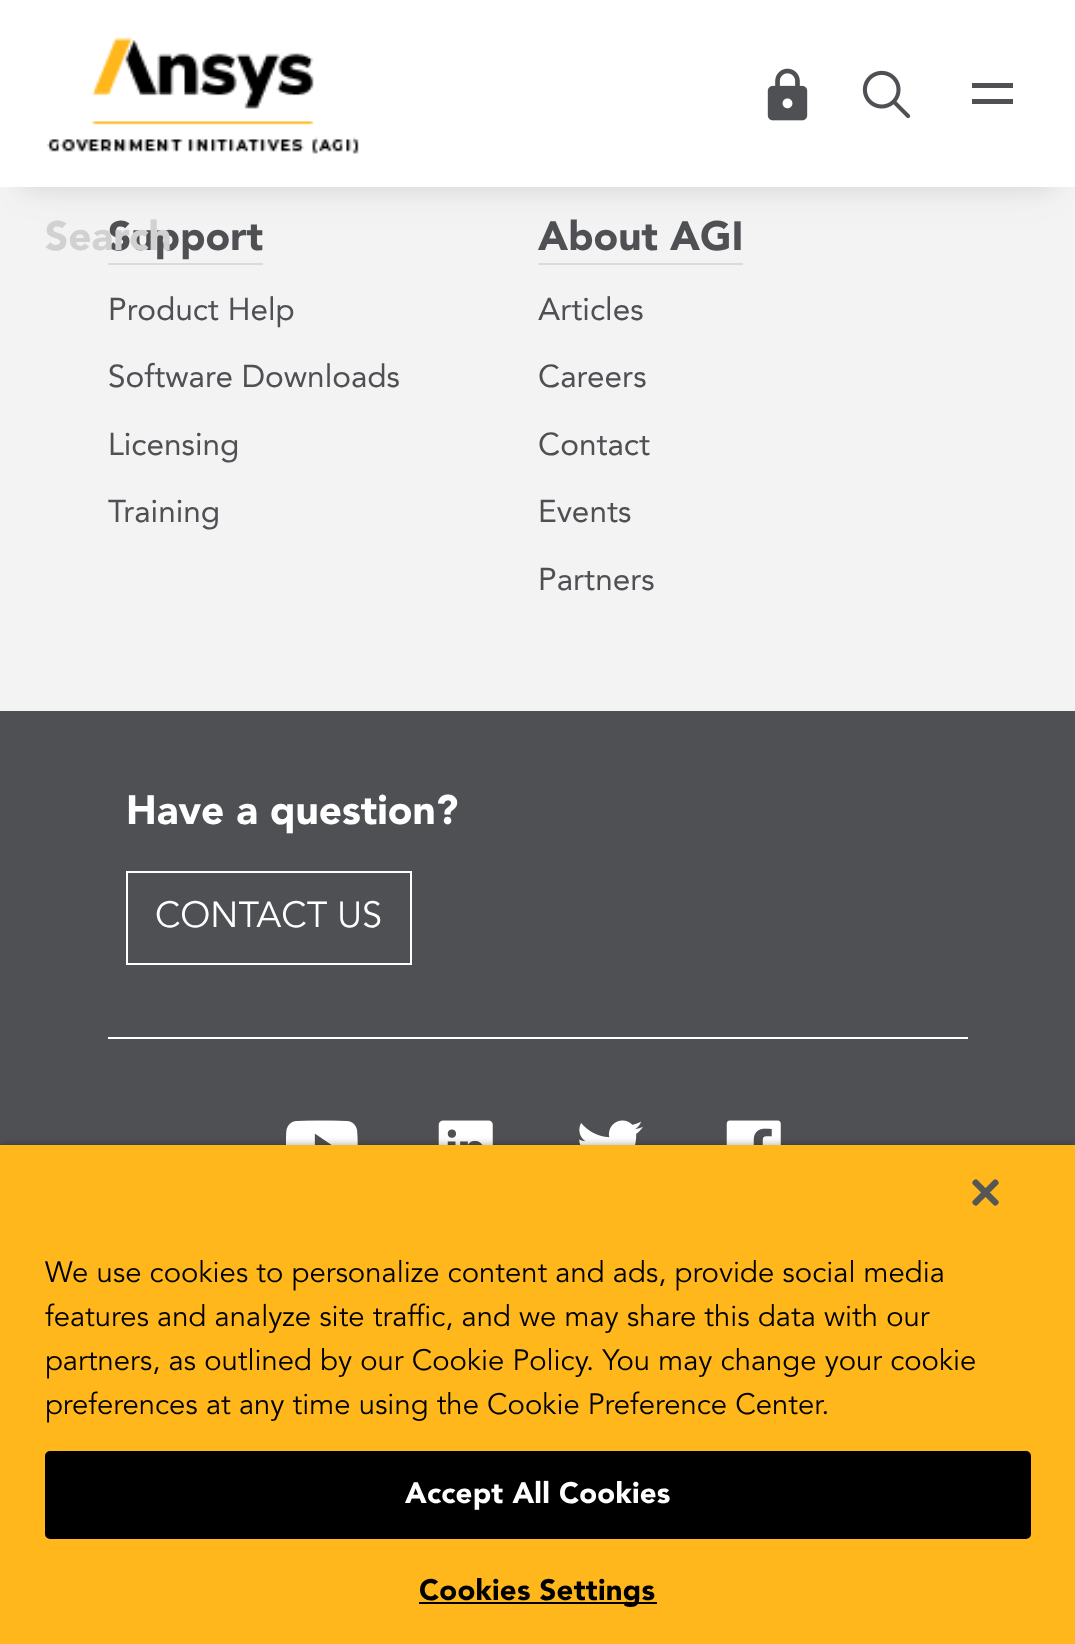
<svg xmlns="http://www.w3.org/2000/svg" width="1075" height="1644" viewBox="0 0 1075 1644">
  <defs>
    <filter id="blur1" x="-50%" y="-200%" width="200%" height="500%"><feGaussianBlur stdDeviation="22.5"/></filter>
    <filter id="blur2" x="-50%" y="-200%" width="200%" height="500%"><feGaussianBlur stdDeviation="11"/></filter>
    <filter id="blur3" x="-50%" y="-200%" width="200%" height="500%"><feGaussianBlur stdDeviation="4.5"/></filter>
  </defs>
  <rect width="100%" height="100%" fill="#f3f3f3"/>
  <rect x="23" y="45" width="1030" height="142" fill="#000000" fill-opacity="0.05" filter="url(#blur1)"/>
  <rect x="23" y="45" width="1030" height="142" fill="#000000" fill-opacity="0.1" filter="url(#blur2)"/>
  <rect x="0" y="0" width="1075" height="187" fill="#ffffff"/>
  <image x="46" y="37" width="313" height="117" href="img1.png"/>
  <image x="767" y="68" width="41" height="53" href="img2.png"/>
  <rect x="972" y="83" width="41" height="5" fill="#4e5054"/>
  <rect x="972" y="99" width="41" height="5" fill="#4e5054"/>
  <image x="862" y="70" width="49" height="49" href="img3.png"/>
  <text x="108" y="250" font-family="Avenir" font-size="40.5" font-weight="900" fill="#4e5054">Support</text>
  <text x="45" y="250" font-family="Avenir" font-size="40.5" font-weight="900" fill="#d1d1d2">Search</text>
  <rect x="108" y="263" width="155" height="2" fill="#dadbdb"/>
  <text x="108" y="320" font-family="Avenir" font-size="31.5" fill="#4e5054">Product Help</text>
  <text x="108" y="387" font-family="Avenir" font-size="31.5" fill="#4e5054">Software Downloads</text>
  <text x="108" y="455" font-family="Avenir" font-size="31.5" fill="#4e5054">Licensing</text>
  <text x="108" y="522" font-family="Avenir" font-size="31.5" fill="#4e5054">Training</text>
  <text x="538" y="250" font-family="Avenir" font-size="40.5" font-weight="900" fill="#4e5054">About AGI</text>
  <rect x="538" y="263" width="205" height="2" fill="#dadbdb"/>
  <text x="538" y="320" font-family="Avenir" font-size="31.5" fill="#4e5054">Articles</text>
  <text x="538" y="387" font-family="Avenir" font-size="31.5" fill="#4e5054">Careers</text>
  <text x="538" y="455" font-family="Avenir" font-size="31.5" fill="#4e5054">Contact</text>
  <text x="538" y="522" font-family="Avenir" font-size="31.5" fill="#4e5054">Events</text>
  <text x="538" y="590" font-family="Avenir" font-size="31.5" fill="#4e5054">Partners</text>
  <rect x="0" y="711" width="1075" height="434" fill="#4e5054"/>
  <text x="126" y="824" font-family="Avenir" font-size="40.5" font-weight="900" fill="#ffffff">Have a question?</text>
  <rect x="108" y="1037" width="860" height="2" fill="#ffffff"/>
  <rect x="127" y="872" width="284" height="92" fill="none" stroke="#ffffff" stroke-width="2"/>
  <text x="155" y="927" font-family="'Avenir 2'" font-size="36" fill="#ffffff">CONTACT US</text>
  <image x="286" y="1120" width="72" height="25" href="img4.png"/>
  <image x="438" y="1120" width="55" height="25" href="img5.png"/>
  <image x="579" y="1120" width="64" height="25" href="img6.png"/>
  <image x="726" y="1120" width="55" height="25" href="img7.png"/>
  <rect x="0" y="1145" width="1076" height="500" fill="#000000" fill-opacity="0.35" filter="url(#blur3)"/>
  <rect x="0" y="1145" width="1075" height="499" fill="#ffb71b"/>
  <image x="972" y="1179" width="27" height="27" href="img8.png"/>
  <text x="45" y="1282" font-family="'Avenir 2'" font-size="29.25" fill="#000000">We use cookies to personalize content and ads, provide social media</text>
  <text x="45" y="1326" font-family="'Avenir 2'" font-size="29.25" fill="#000000">features and analyze site traffic, and we may share this data with our</text>
  <text x="45" y="1370" font-family="'Avenir 2'" font-size="29.25" fill="#000000">partners, as outlined by our Cookie Policy. You may change your cookie</text>
  <text x="45" y="1414" font-family="'Avenir 2'" font-size="29.25" fill="#000000">preferences at any time using the Cookie Preference Center.</text>
  <rect x="46" y="1452" width="984" height="86" rx="4" fill="#000000" stroke="#000000" stroke-width="2"/>
  <text x="405" y="1503" font-family="Avenir" font-size="29.25" font-weight="900" letter-spacing="0.25" fill="#ffffff">Accept All Cookies</text>
  <rect x="419" y="1602" width="238" height="2" fill="#000000"/>
  <text x="419" y="1600" font-family="Avenir" font-size="29.25" font-weight="900" letter-spacing="0.25" fill="#000000">Cookies Settings</text>
</svg>
